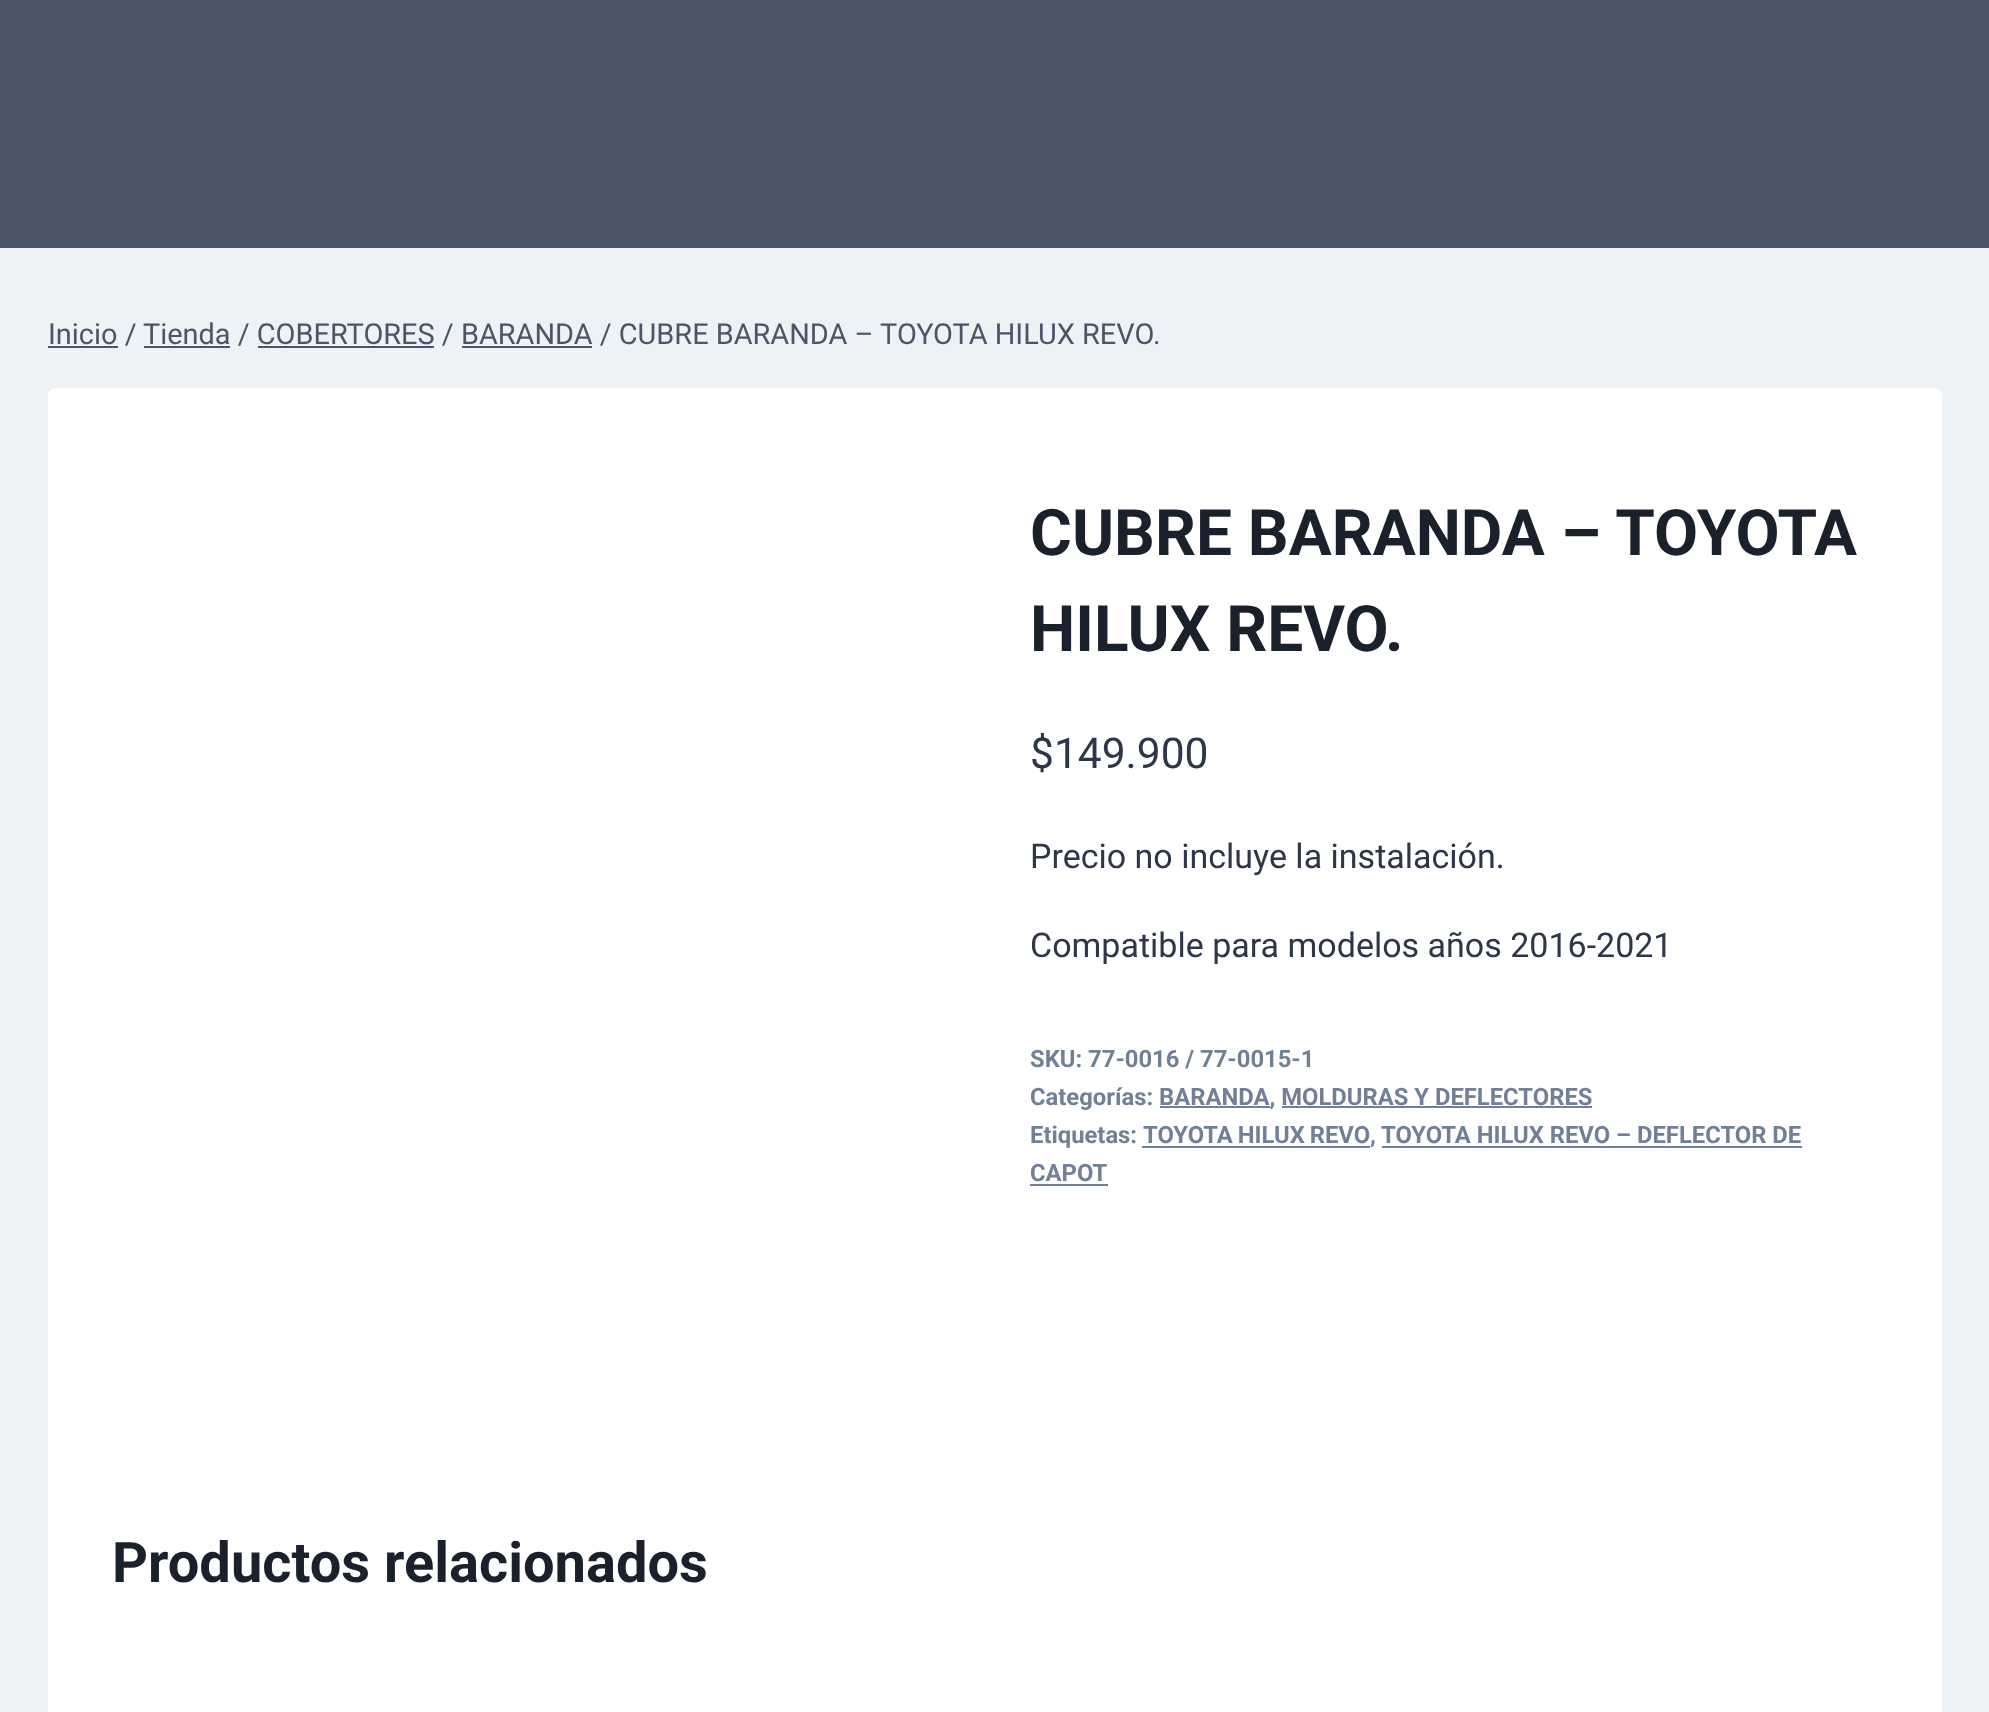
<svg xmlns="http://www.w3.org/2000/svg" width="1989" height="1712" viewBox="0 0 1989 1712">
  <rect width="100%" height="100%" fill="#edf2f7"/>
  <rect x="0" y="0" width="1989" height="248" fill="#4a5568"/>
  <text x="48" y="344" font-family="Roboto" font-size="28.9" fill="#4a5568">Inicio /</text>
  <rect x="48" y="346" width="70" height="2" fill="#4a5568"/>
  <text x="143" y="344" font-family="Roboto" font-size="28.9" fill="#4a5568">Tienda / COBERTORES / BARANDA / CUBRE BARANDA – TOYOTA HILUX REVO.</text>
  <rect x="144" y="346" width="86" height="2" fill="#4a5568"/>
  <rect x="258" y="346" width="176" height="2" fill="#4a5568"/>
  <rect x="462" y="346" width="130" height="2" fill="#4a5568"/>
  <rect x="48" y="388" width="1894" height="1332" rx="8" fill="#ffffff"/>
  <text x="1030" y="555" font-family="Roboto" font-size="64" font-weight="bold" fill="#1a202c">CUBRE BARANDA – TOYOTA</text>
  <text x="1030" y="651" font-family="Roboto" font-size="64" font-weight="bold" fill="#1a202c">HILUX REVO.</text>
  <text x="1030" y="768" font-family="Roboto" font-size="42.5" fill="#2d3748">$149.900</text>
  <text x="1030" y="868" font-family="Roboto" font-size="34" fill="#2d3748">Precio no incluye la instalación.</text>
  <text x="1030" y="957" font-family="Roboto" font-size="34" fill="#2d3748">Compatible para modelos años 2016-2021</text>
  <text x="1030" y="1067" font-family="Roboto" font-size="23.8" font-weight="bold" fill="#718096">SKU: 77-0016 / 77-0015-1</text>
  <text x="1030" y="1105" font-family="Roboto" font-size="23.8" font-weight="bold" fill="#718096">Categorías: BARANDA, MOLDURAS Y DEFLECTORES</text>
  <rect x="1160" y="1106" width="110" height="2" fill="#718096"/>
  <rect x="1282" y="1106" width="310" height="2" fill="#718096"/>
  <text x="1030" y="1143" font-family="Roboto" font-size="23.8" font-weight="bold" fill="#718096">Etiquetas:</text>
  <text x="1143" y="1143" word-spacing="-1" font-family="Roboto" font-size="23.8" font-weight="bold" fill="#718096">TOYOTA HILUX REVO</text>
  <rect x="1142" y="1146" width="228" height="2" fill="#718096"/>
  <text x="1370" y="1143" font-family="Roboto" font-size="23.8" font-weight="bold" fill="#718096">,</text>
  <text x="1381" y="1143" font-family="Roboto" font-size="23.8" font-weight="bold" fill="#718096">TOYOTA HILUX REVO – DEFLECTOR DE</text>
  <rect x="1382" y="1146" width="420" height="2" fill="#718096"/>
  <text x="1030" y="1181" font-family="Roboto" font-size="23.8" font-weight="bold" fill="#718096">CAPOT</text>
  <rect x="1030" y="1184" width="78" height="2" fill="#718096"/>
  <text x="112" y="1582" font-family="Roboto" font-size="56" font-weight="bold" fill="#1a202c">Productos relacionados</text>
</svg>
